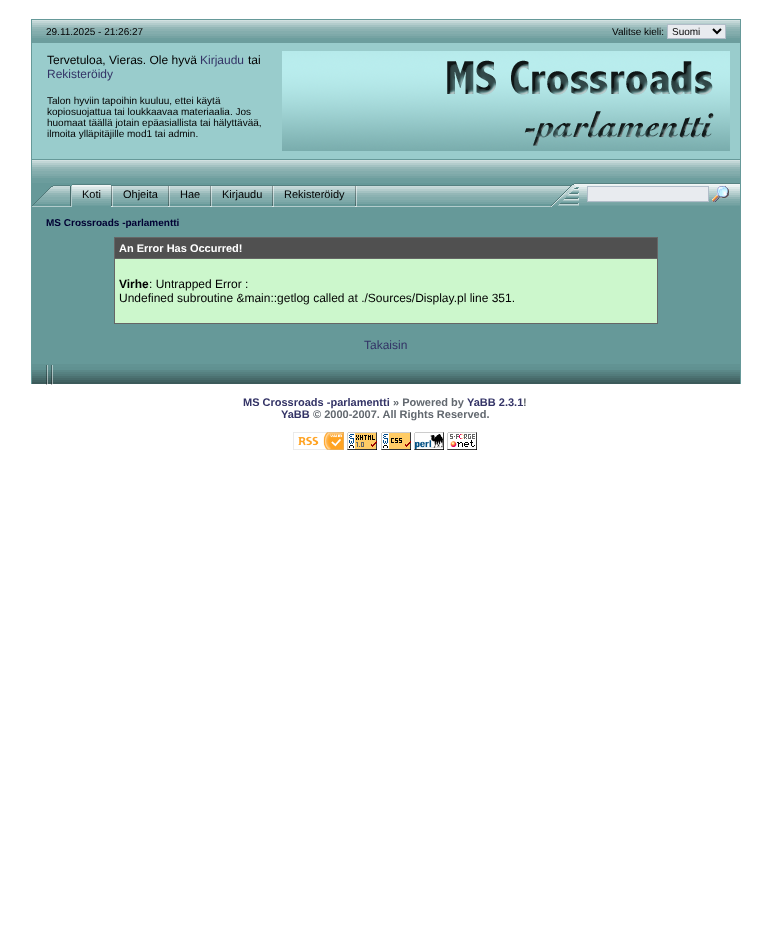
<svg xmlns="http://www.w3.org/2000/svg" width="758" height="950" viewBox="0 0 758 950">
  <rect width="100%" height="100%" fill="#ffffff"/>
  <rect x="31" y="19" width="710" height="365" fill="#669999"/>
  <image x="32" y="20" width="708" height="23" href="img1.png"/>
  <text x="46" y="35" font-family="Liberation Sans" font-size="10" fill="#000000">29.11.2025 - 21:26:27</text>
  <text x="612" y="35" font-family="Liberation Sans" font-size="10" fill="#000000">Valitse kieli:</text>
  <rect x="667.5" y="24.5" width="58" height="14" fill="#e8ebef" stroke="#b1bdc9"/>
  <path d="M713 29L717 33L721 29" fill="none" stroke="#000000" stroke-width="2"/>
  <text x="672" y="35" font-family="Liberation Sans" font-size="10" fill="#000000">Suomi</text>
  <rect x="32" y="43" width="708" height="116" fill="#99cccc"/>
  <text x="47" y="64" font-family="Liberation Sans" font-size="12" fill="#000000">Tervetuloa, Vieras. Ole hyvä</text>
  <text x="200" y="64" font-family="Liberation Sans" font-size="12" fill="#333366">Kirjaudu</text>
  <text x="248" y="64" font-family="Liberation Sans" font-size="12" fill="#000000">tai</text>
  <text x="47" y="78" font-family="Liberation Sans" font-size="12" fill="#333366">Rekisteröidy</text>
  <image x="282" y="51" width="448" height="100" href="img2.png"/>
  <text x="47" y="104" font-family="Liberation Sans" font-size="10" fill="#000000">Talon hyviin tapoihin kuuluu, ettei käytä</text>
  <text x="47" y="115" font-family="Liberation Sans" font-size="10" fill="#000000">kopiosuojattua tai loukkaavaa materiaalia. Jos</text>
  <text x="47" y="126" font-family="Liberation Sans" font-size="10" fill="#000000">huomaat täällä jotain epäasiallista tai hälyttävää,</text>
  <text x="47" y="137" font-family="Liberation Sans" font-size="10" fill="#000000">ilmoita ylläpitäjille mod1 tai admin.</text>
  <image x="32" y="160" width="708" height="23" href="img1.png"/>
  <image x="32" y="185" width="40" height="22" href="img3.png"/>
  <image x="111" y="185" width="379" height="22" href="img4.png"/>
  <image x="72" y="184" width="39" height="22" href="img5.png"/>
  <text x="82" y="198" font-family="Liberation Sans" font-size="11" fill="#000000">Koti</text>
  <image x="111" y="186" width="2" height="21" href="img6.png"/>
  <rect x="113" y="185" width="55" height="22" fill="#669999"/>
  <image x="113" y="185" width="55" height="22" href="img7.png"/>
  <text x="123" y="198" font-family="Liberation Sans" font-size="11" fill="#000000">Ohjeita</text>
  <image x="168" y="186" width="2" height="21" href="img6.png"/>
  <rect x="170" y="185" width="40" height="22" fill="#669999"/>
  <image x="170" y="185" width="40" height="22" href="img8.png"/>
  <text x="180" y="198" font-family="Liberation Sans" font-size="11" fill="#000000">Hae</text>
  <image x="210" y="186" width="2" height="21" href="img6.png"/>
  <rect x="212" y="185" width="60" height="22" fill="#669999"/>
  <image x="212" y="185" width="60" height="22" href="img9.png"/>
  <text x="222" y="198" font-family="Liberation Sans" font-size="11" fill="#000000">Kirjaudu</text>
  <image x="272" y="186" width="2" height="21" href="img6.png"/>
  <rect x="274" y="185" width="81" height="22" fill="#669999"/>
  <image x="274" y="185" width="81" height="22" href="img10.png"/>
  <text x="284" y="198" font-family="Liberation Sans" font-size="11" fill="#000000">Rekisteröidy</text>
  <image x="355" y="186" width="2" height="21" href="img6.png"/>
  <image x="490" y="185" width="5" height="22" href="img11.png"/>
  <image x="495" y="185" width="40" height="22" href="img8.png"/>
  <image x="535" y="183" width="45" height="24" href="img12.png"/>
  <image x="580" y="183" width="160" height="23" href="img13.png"/>
  <rect x="587.5" y="186.5" width="121" height="15" fill="#e8ebef" stroke="#b1bdc9"/>
  <image x="712" y="186" width="17" height="16" href="img14.png"/>
  <text x="46" y="226" font-family="Liberation Sans" font-size="10" font-weight="bold" fill="#000033">MS Crossroads -parlamentti</text>
  <rect x="114" y="237" width="544" height="87" fill="#666666"/>
  <rect x="115" y="238" width="542" height="20" fill="#505050"/>
  <text x="119" y="252" font-family="Liberation Sans" font-size="11" font-weight="bold" fill="#ffffff">An Error Has Occurred!</text>
  <rect x="115" y="259" width="542" height="64" fill="#ccf7cc"/>
  <text x="119" y="288" font-family="Liberation Sans" font-size="12" font-weight="bold" fill="#000000">Virhe</text>
  <text x="149" y="288" font-family="Liberation Sans" font-size="12" fill="#000000">: Untrapped Error :</text>
  <text x="119" y="302" font-family="Liberation Sans" font-size="12" fill="#000000">Undefined subroutine &amp;main::getlog called at ./Sources/Display.pl line 351.</text>
  <text x="364" y="349" font-family="Liberation Sans" font-size="12" fill="#333366">Takaisin</text>
  <image x="32" y="364" width="708" height="20" href="img15.png"/>
  <image x="46" y="365" width="2" height="20" href="img16.png"/>
  <image x="51" y="365" width="2" height="20" href="img16.png"/>
  <text x="243" y="406" font-family="Liberation Sans" font-size="11" font-weight="bold" fill="#333366">MS Crossroads -parlamentti</text>
  <text x="393" y="406" font-family="Liberation Sans" font-size="11" font-weight="bold" fill="#62686f">» Powered by</text>
  <text x="467" y="406" font-family="Liberation Sans" font-size="11" font-weight="bold" fill="#333366">YaBB 2.3.1</text>
  <text x="523" y="406" font-family="Liberation Sans" font-size="11" font-weight="bold" fill="#62686f">!</text>
  <text x="281" y="418" font-family="Liberation Sans" font-size="11" font-weight="bold" fill="#333366">YaBB</text>
  <text x="313" y="418" font-family="Liberation Sans" font-size="11" font-weight="bold" fill="#62686f">© 2000-2007. All Rights Reserved.</text>
  <image x="293" y="432" width="51" height="18" href="img17.png"/>
  <image x="347" y="432" width="30" height="18" href="img18.png"/>
  <image x="381" y="432" width="30" height="18" href="img19.png"/>
  <image x="414" y="432" width="30" height="18" href="img20.png"/>
  <image x="447" y="432" width="30" height="18" href="img21.png"/>
</svg>
